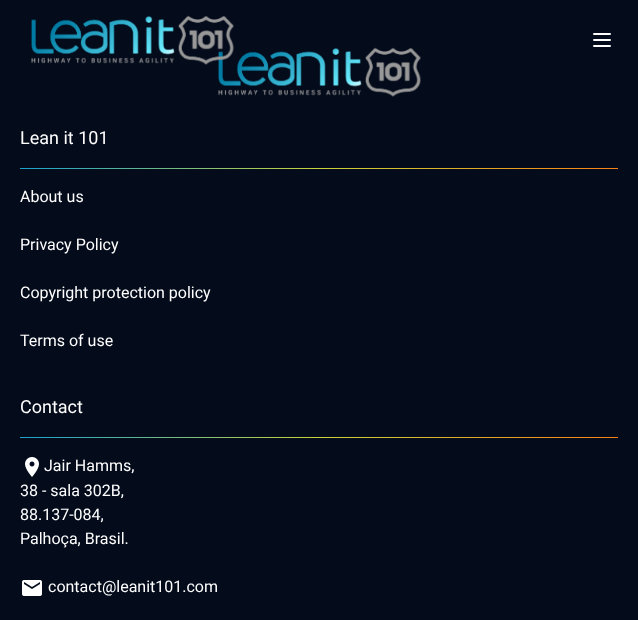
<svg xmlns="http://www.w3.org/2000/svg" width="638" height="620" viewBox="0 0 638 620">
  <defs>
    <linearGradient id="g1" gradientUnits="userSpaceOnUse" x1="20" y1="169" x2="618" y2="168"><stop offset="0" stop-color="#19a2cf"/><stop offset="0.5" stop-color="#c9d33a"/><stop offset="1" stop-color="#f88116"/></linearGradient>
    <linearGradient id="g2" gradientUnits="userSpaceOnUse" x1="20" y1="438" x2="618" y2="438"><stop offset="0" stop-color="#19a2cf"/><stop offset="0.5" stop-color="#c9d33a"/><stop offset="1" stop-color="#f88116"/></linearGradient>
  </defs>
  <rect width="100%" height="100%" fill="#040b1b"/>
  <image x="218" y="47" width="203" height="50" href="img2.png"/>
  <image x="31" y="15" width="203" height="50" href="img1.png"/>
  <path d="M594 34H610M594 40H610M594 46H610" fill="none" stroke="#ffffff" stroke-width="2" stroke-linecap="round" stroke-linejoin="round"/>
  <text x="20" y="144" font-family="Roboto" font-size="18" fill="#ffffff">Lean it 101</text>
  <rect x="20" y="168" width="598" height="1" fill="url(#g1)"/>
  <text x="20" y="202" font-family="Roboto" font-size="16" fill="#ffffff">About us</text>
  <text x="20" y="250" font-family="Roboto" font-size="16" fill="#ffffff">Privacy Policy</text>
  <text x="20" y="298" font-family="Roboto" font-size="16" fill="#ffffff">Copyright protection policy</text>
  <text x="20" y="346" font-family="Roboto" font-size="16" fill="#ffffff">Terms of use</text>
  <text x="20" y="413" font-family="Roboto" font-size="18" fill="#ffffff">Contact</text>
  <rect x="20" y="437" width="598" height="1" fill="url(#g2)"/>
  <image x="25" y="457" width="14" height="20" href="img3.png"/>
  <text x="44" y="471" font-family="Roboto" font-size="16" fill="#ffffff">Jair Hamms,</text>
  <text x="20" y="496" font-family="Roboto" font-size="16" fill="#ffffff">38 - sala 302B,</text>
  <text x="20" y="520" font-family="Roboto" font-size="16" fill="#ffffff">88.137-084,</text>
  <text x="20" y="544" font-family="Roboto" font-size="16" fill="#ffffff">Palhoça, Brasil.</text>
  <image x="22" y="580" width="20" height="16" href="img4.png"/>
  <text x="48" y="592" font-family="Roboto" font-size="16" fill="#ffffff">contact@leanit101.com</text>
</svg>
